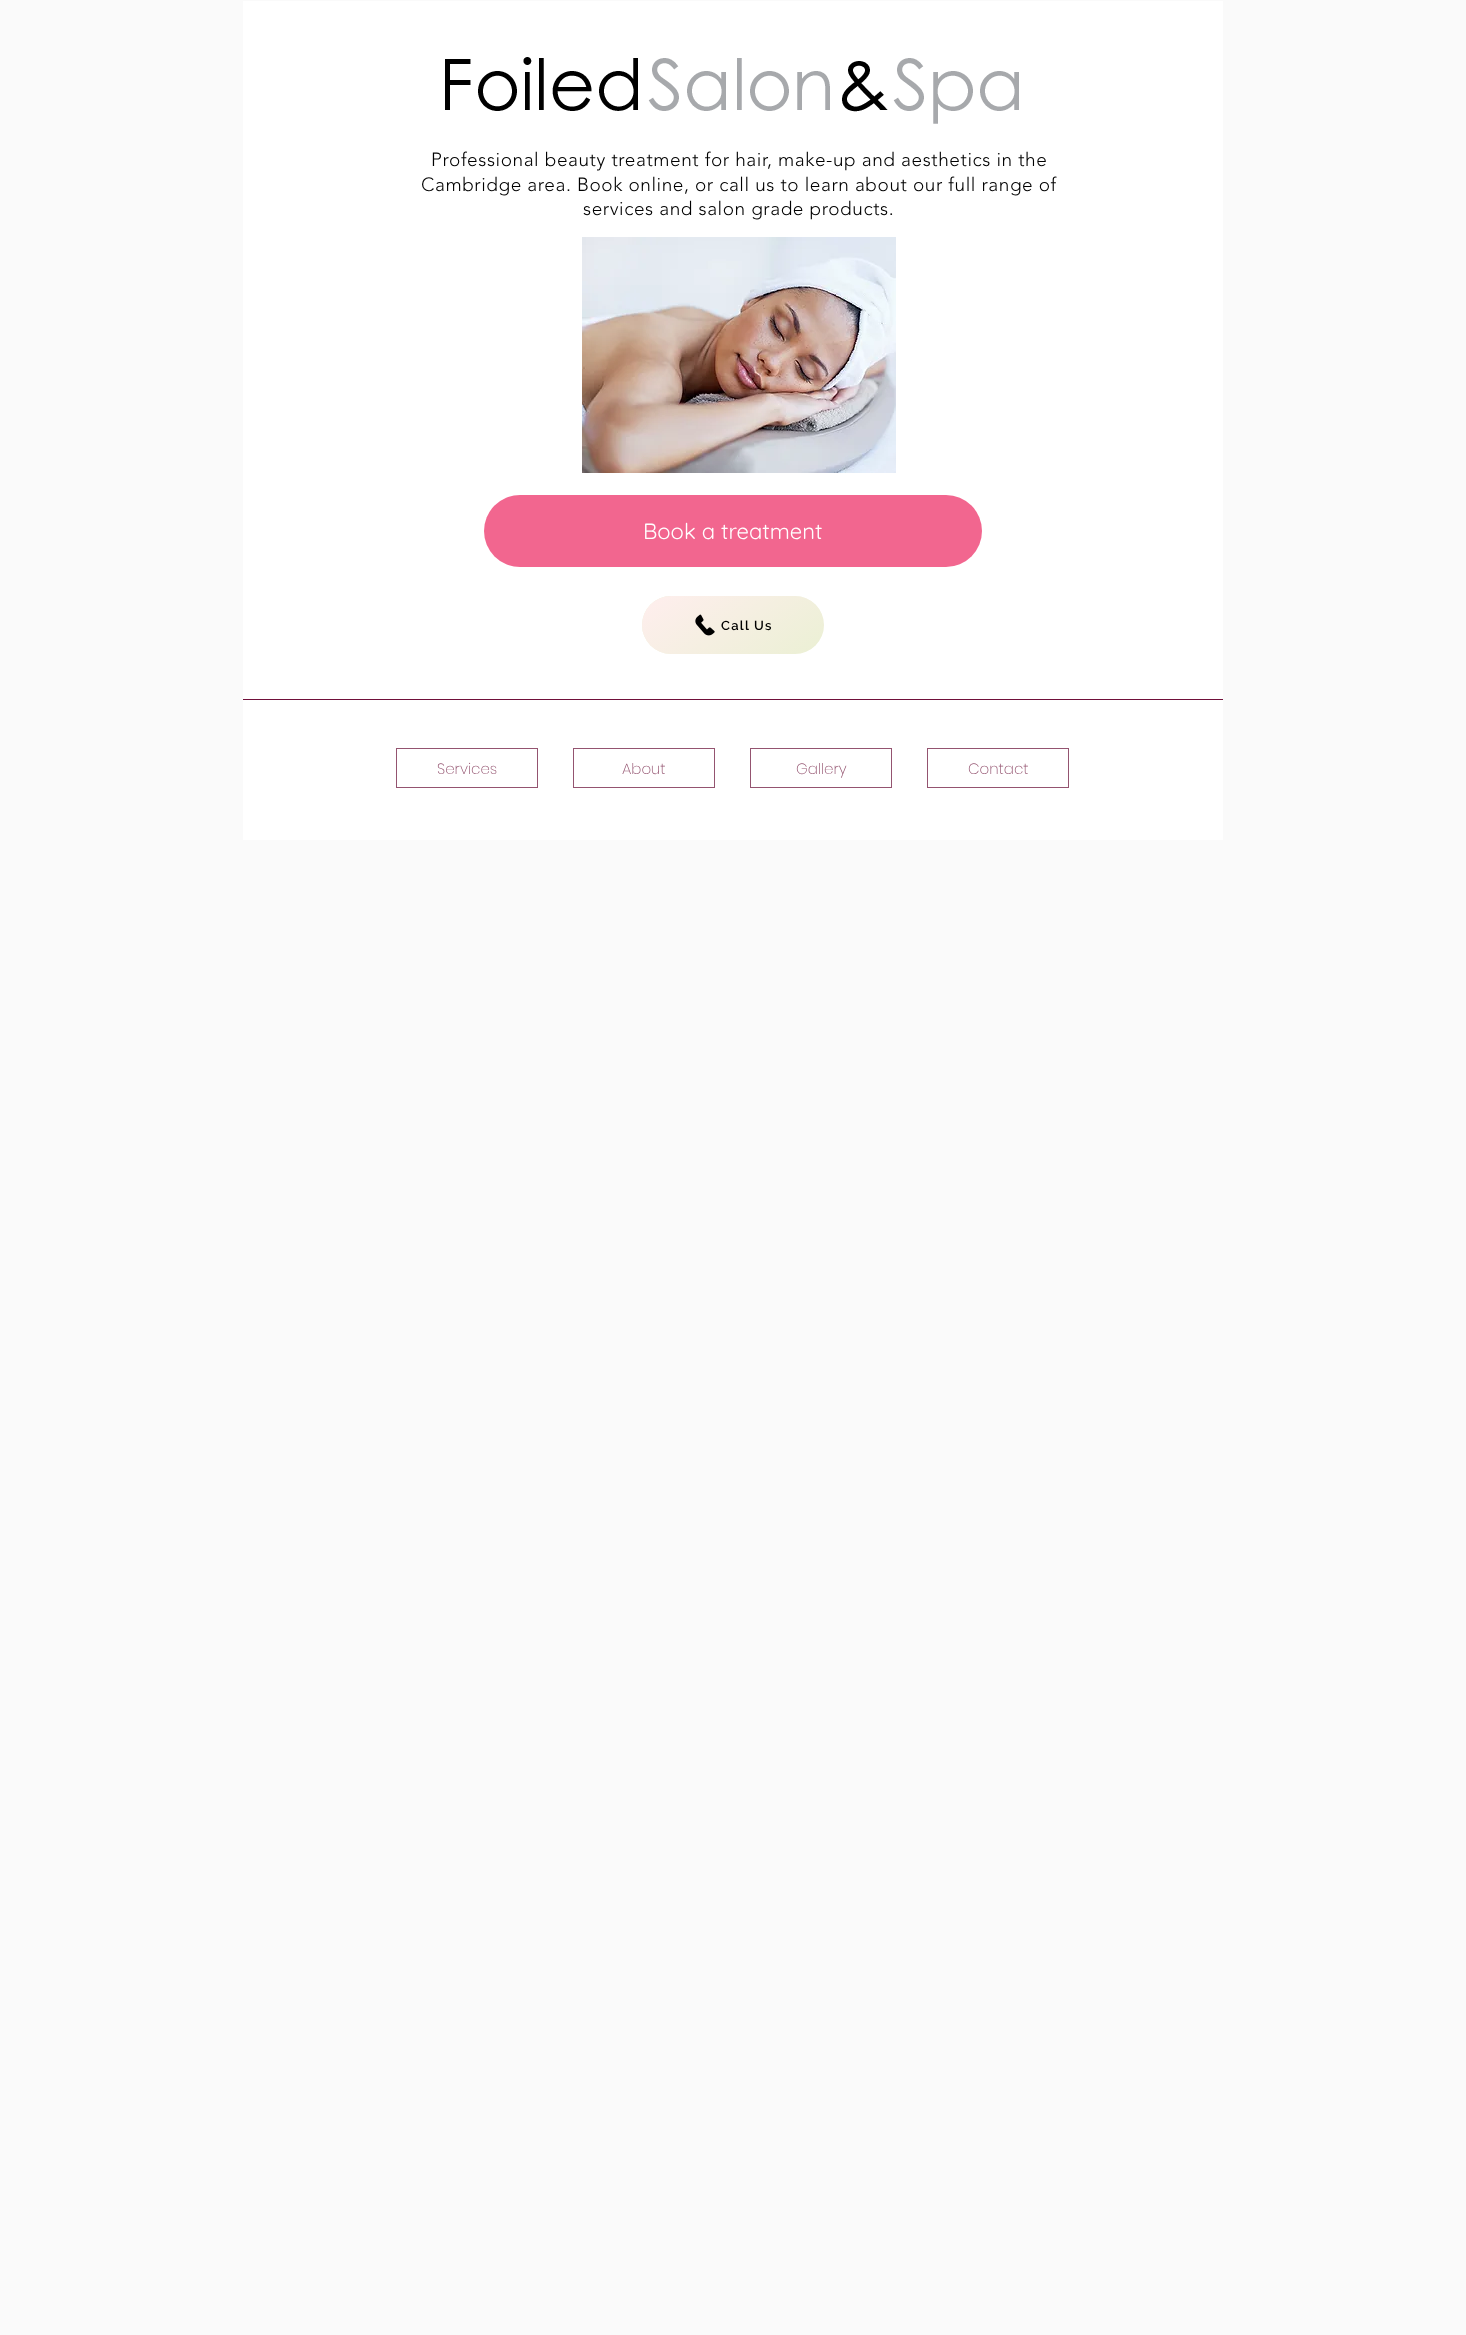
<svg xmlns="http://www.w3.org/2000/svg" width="1466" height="2335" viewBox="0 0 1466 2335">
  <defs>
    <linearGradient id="g1" gradientUnits="userSpaceOnUse" x1="689" y1="563" x2="777" y2="687"><stop offset="0" stop-color="#ffeeee"/><stop offset="1" stop-color="#ffeeee" stop-opacity="0"/></linearGradient>
  </defs>
  <rect width="100%" height="100%" fill="#fafafa"/>
  <rect x="243" y="1" width="980" height="839" fill="#ffffff"/>
  <image x="445" y="57" width="574" height="67" href="img1.png"/>
  <text x="431" y="166" font-family="'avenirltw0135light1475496'" font-size="19" font-weight="300" letter-spacing="0.57" fill="#000000">Professional beauty treatment for hair, make-up and aesthetics in the</text>
  <text x="421" y="191" font-family="'avenirltw0135light1475496'" font-size="19" font-weight="300" letter-spacing="0.57" fill="#000000">Cambridge area. Book online, or call us to learn about our full range of</text>
  <text x="583" y="215" font-family="'avenirltw0135light1475496'" font-size="19" font-weight="300" letter-spacing="0.57" fill="#000000">services and salon grade products.</text>
  <image x="582" y="237" width="314" height="236" href="img2.png"/>
  <rect x="484" y="495" width="498" height="72" rx="36" fill="#f2668f"/>
  <text x="643" y="539" font-family="Quicksand" font-size="22" fill="#ffffff">Book a treatment</text>
  <rect x="642" y="596" width="182" height="58" rx="29" fill="#ebf0d4"/>
  <rect x="642" y="596" width="182" height="58" rx="29" fill="url(#g1)"/>
  <image x="695" y="614" width="20" height="22" href="img3.png"/>
  <text x="721" y="630" font-family="Raleway" font-size="13" font-weight="600" letter-spacing="1.25" fill="#000000">Call Us</text>
  <rect x="243" y="699" width="980" height="1" fill="#70103a"/>
  <rect x="396.5" y="748.5" width="141" height="39" fill="none" stroke="#945470"/>
  <text x="437" y="774" font-family="Poppins" font-size="15" font-weight="200" fill="#945470">Services</text>
  <rect x="573.5" y="748.5" width="141" height="39" fill="none" stroke="#945470"/>
  <text x="622" y="774" font-family="Poppins" font-size="15" font-weight="200" fill="#945470">About</text>
  <rect x="750.5" y="748.5" width="141" height="39" fill="none" stroke="#945470"/>
  <text x="796" y="774" font-family="Poppins" font-size="15" font-weight="200" fill="#945470">Gallery</text>
  <rect x="927.5" y="748.5" width="141" height="39" fill="none" stroke="#945470"/>
  <text x="968" y="774" font-family="Poppins" font-size="15" font-weight="200" fill="#945470">Contact</text>
</svg>
